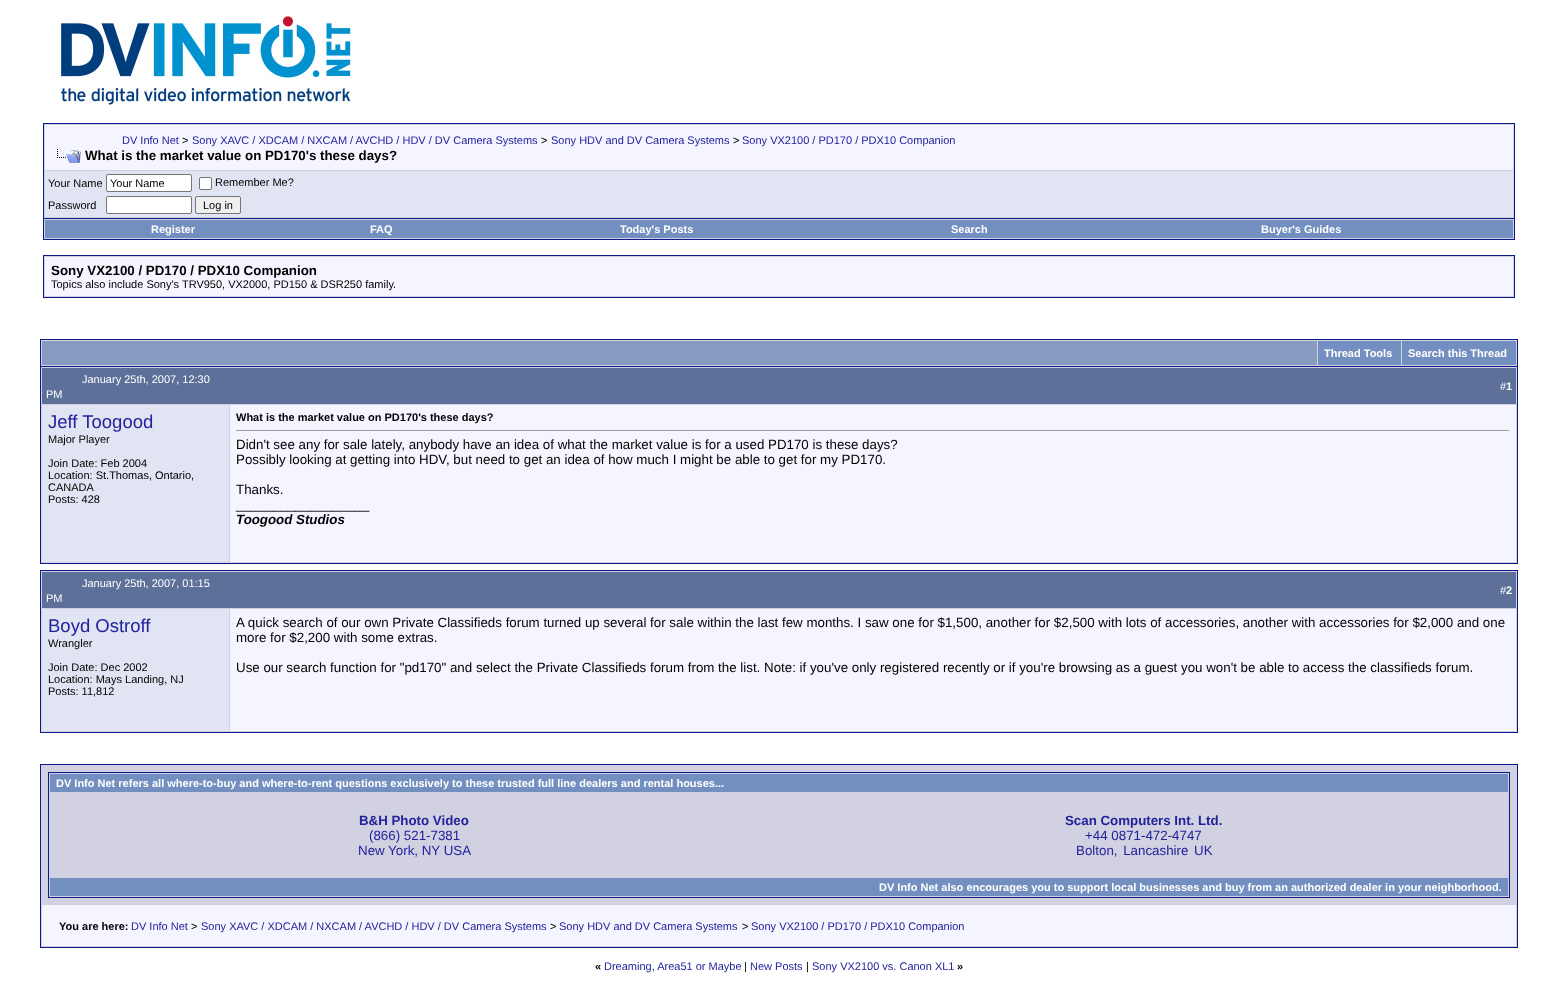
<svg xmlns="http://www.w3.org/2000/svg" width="1558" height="983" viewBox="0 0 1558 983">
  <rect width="100%" height="100%" fill="#ffffff"/>
  <image x="56" y="15" width="296" height="90" href="img1.png"/>
  <rect x="43.5" y="123.5" width="1471" height="95" fill="#d1d1e1" stroke="#0b198c"/>
  <rect x="45" y="125" width="1468" height="45" fill="#f5f5ff"/>
  <text x="122" y="144" font-family="Liberation Sans" font-size="11" fill="#22229c">DV Info Net</text>
  <text x="182" y="144" font-family="Liberation Sans" font-size="11" fill="#000000">&gt;</text>
  <text x="192" y="144" font-family="Liberation Sans" font-size="11" fill="#22229c">Sony XAVC / XDCAM / NXCAM / AVCHD / HDV / DV Camera Systems</text>
  <text x="541" y="144" font-family="Liberation Sans" font-size="11" fill="#000000">&gt;</text>
  <text x="551" y="144" font-family="Liberation Sans" font-size="11" fill="#22229c">Sony HDV and DV Camera Systems</text>
  <text x="733" y="144" font-family="Liberation Sans" font-size="11" fill="#000000">&gt;</text>
  <text x="742" y="144" font-family="Liberation Sans" font-size="11" fill="#22229c">Sony VX2100 / PD170 / PDX10 Companion</text>
  <image x="57" y="149" width="24" height="14" href="img2.png"/>
  <text x="85" y="160" font-family="Liberation Sans" font-size="13.33" font-weight="bold" fill="#000000">What is the market value on PD170's these days?</text>
  <rect x="45" y="171" width="1468" height="46" fill="#e1e4f2"/>
  <text x="48" y="187" font-family="Liberation Sans" font-size="11" fill="#000000">Your Name</text>
  <rect x="106.5" y="174.5" width="85" height="17" rx="1.5" fill="#ffffff" stroke="#767676"/>
  <text x="110" y="187" font-family="Liberation Sans" font-size="11" fill="#000000">Your Name</text>
  <rect x="199.5" y="177.5" width="12" height="12" rx="1.5" fill="#ffffff" stroke="#767676"/>
  <text x="215" y="186" font-family="Liberation Sans" font-size="11" fill="#000000">Remember Me?</text>
  <text x="48" y="209" font-family="Liberation Sans" font-size="11" fill="#000000">Password</text>
  <rect x="106.5" y="196.5" width="85" height="17" rx="1.5" fill="#ffffff" stroke="#767676"/>
  <rect x="195.5" y="196.5" width="45" height="17" rx="1.5" fill="#efefef" stroke="#767676"/>
  <text x="203" y="209" font-family="Liberation Sans" font-size="11" fill="#000000">Log in</text>
  <rect x="44" y="219" width="1470" height="20" fill="#d1d1e1"/>
  <rect x="1514" y="219" width="1" height="21" fill="#0b198c"/>
  <rect x="43" y="239" width="1472" height="1" fill="#0b198c"/>
  <rect x="43" y="219" width="1" height="21" fill="#0b198c"/>
  <rect x="45" y="220" width="1468" height="18" fill="#738fbf"/>
  <text x="151" y="233" font-family="Liberation Sans" font-size="11" font-weight="bold" fill="#ffffff">Register</text>
  <text x="370" y="233" font-family="Liberation Sans" font-size="11" font-weight="bold" fill="#ffffff">FAQ</text>
  <text x="620" y="233" font-family="Liberation Sans" font-size="11" font-weight="bold" fill="#ffffff">Today's Posts</text>
  <text x="951" y="233" font-family="Liberation Sans" font-size="11" font-weight="bold" fill="#ffffff">Search</text>
  <text x="1261" y="233" font-family="Liberation Sans" font-size="11" font-weight="bold" fill="#ffffff">Buyer's Guides</text>
  <rect x="43.5" y="255.5" width="1471" height="42" fill="#d1d1e1" stroke="#0b198c"/>
  <rect x="45" y="257" width="1468" height="39" fill="#f5f5ff"/>
  <text x="51" y="275" font-family="Liberation Sans" font-size="13.33" font-weight="bold" fill="#000000">Sony VX2100 / PD170 / PDX10 Companion</text>
  <text x="51" y="288" font-family="Liberation Sans" font-size="11" fill="#000000">Topics also include Sony's TRV950, VX2000, PD150 &amp; DSR250 family.</text>
  <rect x="41" y="340" width="1476" height="26" fill="#d1d1e1"/>
  <rect x="40" y="339" width="1478" height="1" fill="#0b198c"/>
  <rect x="1517" y="339" width="1" height="27" fill="#0b198c"/>
  <rect x="40" y="339" width="1" height="27" fill="#0b198c"/>
  <rect x="42" y="341" width="1275" height="24" fill="#869bbf"/>
  <rect x="1318" y="341" width="83" height="24" fill="#738fbf"/>
  <text x="1324" y="357" font-family="Liberation Sans" font-size="11" font-weight="bold" fill="#ffffff">Thread Tools</text>
  <rect x="1402" y="341" width="114" height="24" fill="#738fbf"/>
  <text x="1408" y="357" font-family="Liberation Sans" font-size="11" font-weight="bold" fill="#ffffff">Search this Thread</text>
  <rect x="40.5" y="366.5" width="1477" height="197" fill="none" stroke="#0b198c"/>
  <rect x="42" y="368" width="1474" height="36" fill="#5c7099"/>
  <rect x="41" y="367" width="1476" height="1" fill="#d1d1e1"/>
  <rect x="41" y="404" width="189" height="1" fill="#d1d1e1"/>
  <rect x="41" y="367" width="1" height="166" fill="#d1d1e1"/>
  <text x="82" y="383" font-family="Liberation Sans" font-size="11" fill="#ffffff">January 25th, 2007, 12:30</text>
  <text x="46" y="398" font-family="Liberation Sans" font-size="11" fill="#ffffff">PM</text>
  <rect x="1516" y="367" width="1" height="196" fill="#d1d1e1"/>
  <rect x="230" y="404" width="1287" height="1" fill="#d1d1e1"/>
  <text x="1500" y="390" font-family="Liberation Sans" font-size="11" fill="#ffffff">#</text>
  <text x="1506" y="390" font-family="Liberation Sans" font-size="11" font-weight="bold" fill="#ffffff">1</text>
  <rect x="42" y="405" width="187" height="157" fill="#e1e4f2"/>
  <rect x="229" y="405" width="1" height="158" fill="#d1d1e1"/>
  <text x="48" y="428" font-family="Liberation Sans" font-size="18.5" fill="#22229c">Jeff Toogood</text>
  <text x="48" y="443" font-family="Liberation Sans" font-size="11" fill="#000000">Major Player</text>
  <text x="48" y="467" font-family="Liberation Sans" font-size="11" fill="#000000">Join Date: Feb 2004</text>
  <text x="48" y="479" font-family="Liberation Sans" font-size="11" fill="#000000">Location: St.Thomas, Ontario,</text>
  <text x="48" y="491" font-family="Liberation Sans" font-size="11" fill="#000000">CANADA</text>
  <text x="48" y="503" font-family="Liberation Sans" font-size="11" fill="#000000">Posts: 428</text>
  <rect x="230" y="405" width="1286" height="157" fill="#f5f5ff"/>
  <text x="236" y="421" font-family="Liberation Sans" font-size="11" font-weight="bold" fill="#000000">What is the market value on PD170's these days?</text>
  <rect x="236" y="430" width="1274" height="1" fill="#9f9f9f"/>
  <rect x="1509" y="430" width="1" height="1" fill="#eeeeee"/>
  <text x="236" y="449" font-family="Liberation Sans" font-size="13.33" fill="#000000">Didn't see any for sale lately, anybody have an idea of what the market value is for a used PD170 is these days?</text>
  <text x="236" y="464" font-family="Liberation Sans" font-size="13.33" fill="#000000">Possibly looking at getting into HDV, but need to get an idea of how much I might be able to get for my PD170.</text>
  <text x="236" y="494" font-family="Liberation Sans" font-size="13.33" fill="#000000">Thanks.</text>
  <text x="236" y="509" font-family="Liberation Sans" font-size="13.33" fill="#000000">__________________</text>
  <text x="236" y="524" font-family="Liberation Sans" font-size="13.3" font-weight="bold" font-style="italic" fill="#000000">Toogood Studios</text>
  <rect x="41" y="562" width="1476" height="1" fill="#d1d1e1"/>
  <rect x="41" y="533" width="1" height="30" fill="#d1d1e1"/>
  <rect x="40.5" y="570.5" width="1477" height="162" fill="none" stroke="#0b198c"/>
  <rect x="42" y="572" width="1474" height="36" fill="#5c7099"/>
  <rect x="41" y="571" width="1476" height="1" fill="#d1d1e1"/>
  <rect x="41" y="608" width="189" height="1" fill="#d1d1e1"/>
  <rect x="41" y="571" width="1" height="132" fill="#d1d1e1"/>
  <text x="82" y="587" font-family="Liberation Sans" font-size="11" fill="#ffffff">January 25th, 2007, 01:15</text>
  <text x="46" y="602" font-family="Liberation Sans" font-size="11" fill="#ffffff">PM</text>
  <rect x="1516" y="571" width="1" height="161" fill="#d1d1e1"/>
  <rect x="230" y="608" width="1287" height="1" fill="#d1d1e1"/>
  <text x="1500" y="594" font-family="Liberation Sans" font-size="11" fill="#ffffff">#</text>
  <text x="1506" y="594" font-family="Liberation Sans" font-size="11" font-weight="bold" fill="#ffffff">2</text>
  <rect x="42" y="609" width="187" height="122" fill="#e1e4f2"/>
  <rect x="229" y="609" width="1" height="123" fill="#d1d1e1"/>
  <text x="48" y="632" font-family="Liberation Sans" font-size="18.5" fill="#22229c">Boyd Ostroff</text>
  <text x="48" y="647" font-family="Liberation Sans" font-size="11" fill="#000000">Wrangler</text>
  <text x="48" y="671" font-family="Liberation Sans" font-size="11" fill="#000000">Join Date: Dec 2002</text>
  <text x="48" y="683" font-family="Liberation Sans" font-size="11" fill="#000000">Location: Mays Landing, NJ</text>
  <text x="48" y="695" font-family="Liberation Sans" font-size="11" fill="#000000">Posts: 11,812</text>
  <rect x="230" y="609" width="1286" height="122" fill="#f5f5ff"/>
  <text x="236" y="627" font-family="Liberation Sans" font-size="13.33" fill="#000000">A quick search of our own Private Classifieds forum turned up several for sale within the last few months. I saw one for $1,500, another for $2,500 with lots of accessories, another with accessories for $2,000 and one</text>
  <text x="236" y="642" font-family="Liberation Sans" font-size="13.33" fill="#000000">more for $2,200 with some extras.</text>
  <text x="236" y="672" font-family="Liberation Sans" font-size="13.33" fill="#000000">Use our search function for "pd170" and select the Private Classifieds forum from the list. Note: if you've only registered recently or if you're browsing as a guest you won't be able to access the classifieds forum.</text>
  <rect x="41" y="731" width="1476" height="1" fill="#d1d1e1"/>
  <rect x="41" y="703" width="1" height="29" fill="#d1d1e1"/>
  <rect x="40.5" y="764.5" width="1477" height="183" fill="#d1d1e1" stroke="#0b198c"/>
  <rect x="48.5" y="772.5" width="1461" height="125" fill="none" stroke="#0b198c"/>
  <rect x="50" y="774" width="1458" height="18" fill="#738fbf"/>
  <text x="56" y="787" font-family="Liberation Sans" font-size="11" font-weight="bold" fill="#ffffff">DV Info Net refers all where-to-buy and where-to-rent questions exclusively to these trusted full line dealers and rental houses...</text>
  <text x="359" y="825" font-family="Liberation Sans" font-size="13.3" font-weight="bold" fill="#22229c">B&amp;H Photo Video</text>
  <text x="369" y="840" font-family="Liberation Sans" font-size="13.33" fill="#22229c">(866) 521-7381</text>
  <text x="358" y="855" font-family="Liberation Sans" font-size="13.33" fill="#22229c">New York, NY USA</text>
  <text x="1065" y="825" font-family="Liberation Sans" font-size="13.3" font-weight="bold" fill="#22229c">Scan Computers Int. Ltd.</text>
  <text x="1085" y="840" font-family="Liberation Sans" font-size="13.33" fill="#22229c">+44 0871-472-4747</text>
  <text x="1076" y="855" word-spacing="2" font-family="Liberation Sans" font-size="13.33" fill="#22229c">Bolton, Lancashire UK</text>
  <rect x="50" y="878" width="1458" height="18" fill="#738fbf"/>
  <text x="879" y="891" font-family="Liberation Sans" font-size="11" font-weight="bold" fill="#ffffff">DV Info Net also encourages you to support local businesses and buy from an authorized dealer in your neighborhood.</text>
  <rect x="42" y="905" width="1474" height="41" fill="#f5f5ff"/>
  <text x="59" y="930" font-family="Liberation Sans" font-size="11" font-weight="bold" fill="#000000">You are here:</text>
  <text x="131" y="930" font-family="Liberation Sans" font-size="11" fill="#22229c">DV Info Net</text>
  <text x="191" y="930" font-family="Liberation Sans" font-size="11" fill="#000000">&gt;</text>
  <text x="201" y="930" font-family="Liberation Sans" font-size="11" fill="#22229c">Sony XAVC / XDCAM / NXCAM / AVCHD / HDV / DV Camera Systems</text>
  <text x="550" y="930" font-family="Liberation Sans" font-size="11" fill="#000000">&gt;</text>
  <text x="559" y="930" font-family="Liberation Sans" font-size="11" fill="#22229c">Sony HDV and DV Camera Systems</text>
  <text x="742" y="930" font-family="Liberation Sans" font-size="11" fill="#000000">&gt;</text>
  <text x="751" y="930" font-family="Liberation Sans" font-size="11" fill="#22229c">Sony VX2100 / PD170 / PDX10 Companion</text>
  <text x="595" y="970" font-family="Liberation Sans" font-size="11" font-weight="bold" fill="#000000">«</text>
  <text x="604" y="970" font-family="Liberation Sans" font-size="11" fill="#22229c">Dreaming, Area51 or Maybe</text>
  <text x="744" y="970" font-family="Liberation Sans" font-size="11" fill="#000000">|</text>
  <text x="750" y="970" font-family="Liberation Sans" font-size="11" fill="#22229c">New Posts</text>
  <text x="806" y="970" font-family="Liberation Sans" font-size="11" fill="#000000">|</text>
  <text x="812" y="970" font-family="Liberation Sans" font-size="11" fill="#22229c">Sony VX2100 vs. Canon XL1</text>
  <text x="957" y="970" font-family="Liberation Sans" font-size="11" font-weight="bold" fill="#000000">»</text>
</svg>
